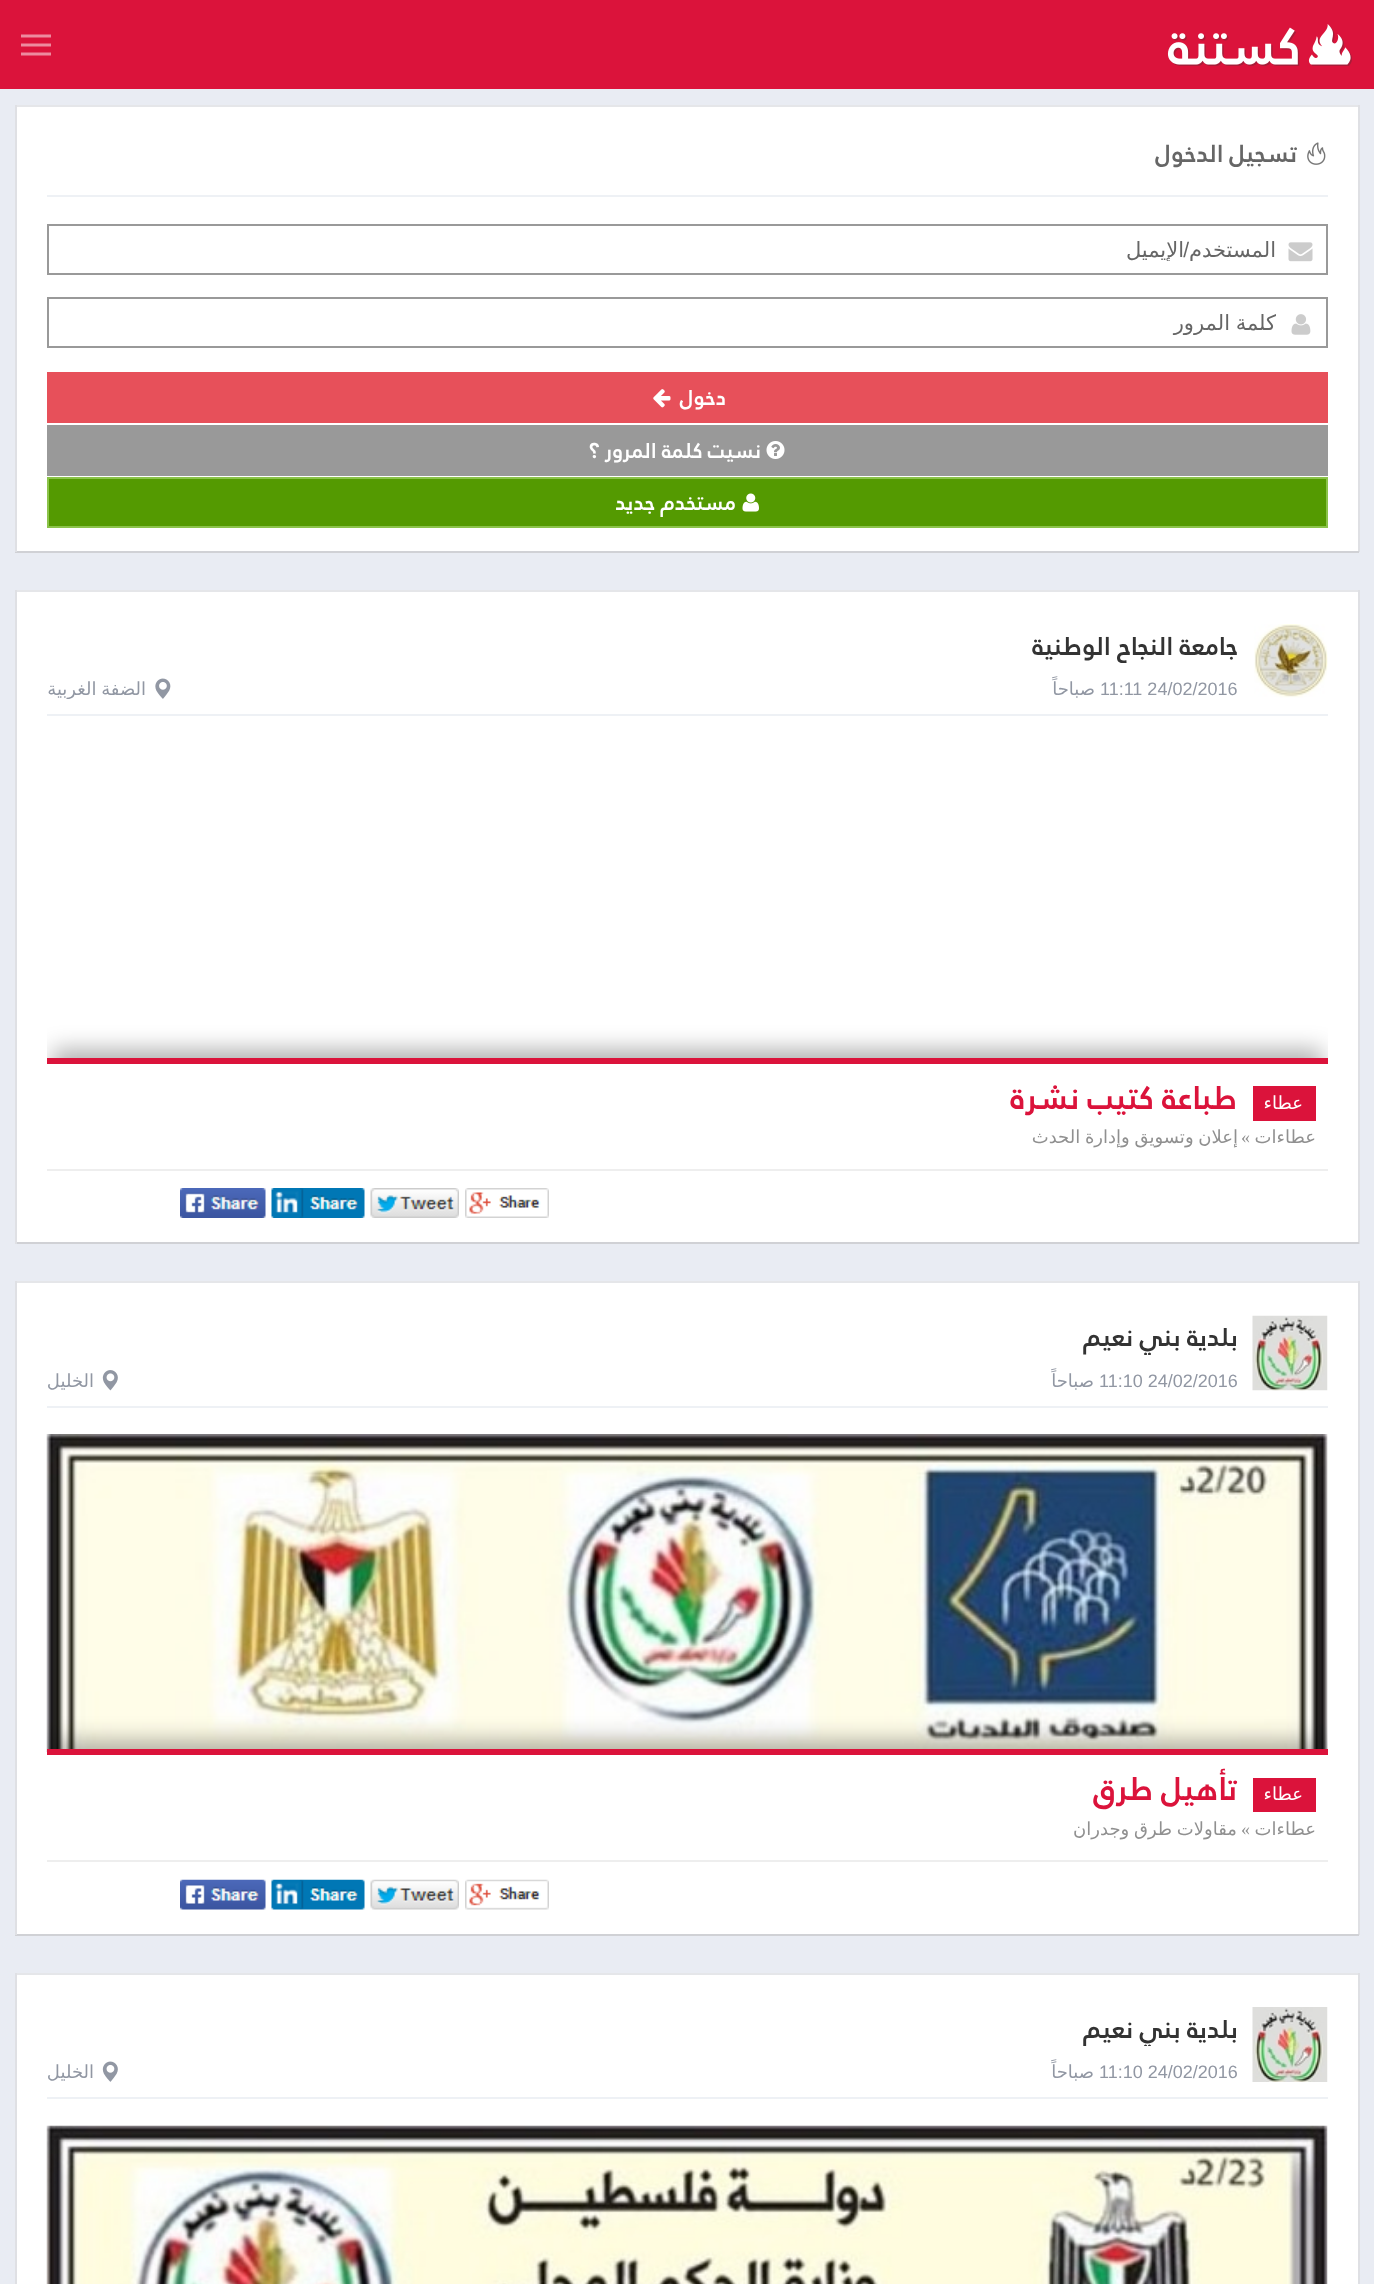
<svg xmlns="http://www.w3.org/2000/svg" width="1374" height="2284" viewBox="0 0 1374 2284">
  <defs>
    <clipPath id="clip1"><rect x="66" y="237" width="1211" height="24"/></clipPath>
    <clipPath id="clip2"><rect x="66" y="311" width="1211" height="24"/></clipPath>
    <clipPath id="clip3"><rect x="47" y="633" width="1191" height="30"/></clipPath>
    <clipPath id="clip4"><rect x="47" y="624" width="1281" height="75"/></clipPath>
    <clipPath id="clip5"><rect x="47" y="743" width="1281" height="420"/></clipPath>
    <clipPath id="clip6"><path d="M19 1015H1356V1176H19ZM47 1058H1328V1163H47Z" clip-rule="evenodd"/></clipPath>
    <filter id="blur1" x="-50%" y="-200%" width="200%" height="500%"><feGaussianBlur stdDeviation="11"/></filter>
    <clipPath id="clip7"><rect x="47" y="1325" width="1191" height="30"/></clipPath>
    <clipPath id="clip8"><rect x="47" y="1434" width="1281" height="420"/></clipPath>
    <clipPath id="clip9"><path d="M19 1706H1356V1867H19ZM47 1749H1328V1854H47Z" clip-rule="evenodd"/></clipPath>
    <clipPath id="clip10"><rect x="47" y="2016" width="1191" height="30"/></clipPath>
  </defs>
  <rect width="100%" height="100%" fill="#e9ecf3"/>
  <rect x="0" y="0" width="1374" height="89" fill="#db133b"/>
  <image x="1167" y="24" width="185" height="42" href="img1.png"/>
  <image x="21" y="34" width="30" height="22" href="img2.png"/>
  <rect x="17" y="107" width="1341" height="444" fill="#ffffff"/>
  <rect x="15" y="105" width="1344" height="2" fill="#e5e6e9"/>
  <rect x="1358" y="105" width="2" height="447" fill="#dfe0e4"/>
  <rect x="15" y="551" width="1344" height="2" fill="#d0d1d5"/>
  <rect x="15" y="105" width="2" height="447" fill="#dfe0e4"/>
  <rect x="47" y="195" width="1281" height="2" fill="#eef1f5"/>
  <image x="1307" y="142" width="19" height="23" href="img3.png"/>
  <text x="1297" y="162" font-family="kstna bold" font-size="24" font-weight="bold" direction="rtl" fill="#666666">تسجيل الدخول</text>
  <rect x="48" y="225" width="1279" height="49" fill="none" stroke="#999999" stroke-width="2"/>
  <image x="1288" y="242" width="25" height="20" href="img4.png"/>
  <g clip-path="url(#clip1)">
    <text x="1276" y="257" font-family="DejaVu Sans" font-size="21" direction="rtl" fill="#666666">المستخدم</text>
  </g>
  <text x="1189" y="257" font-family="Liberation Sans" font-size="21" direction="rtl" fill="#666666">/</text>
  <g clip-path="url(#clip1)">
    <text x="1184" y="257" font-family="DejaVu Sans" font-size="21" direction="rtl" fill="#666666">الإيميل</text>
  </g>
  <rect x="48" y="298" width="1279" height="49" fill="none" stroke="#999999" stroke-width="2"/>
  <image x="1291" y="314" width="20" height="21" href="img5.png"/>
  <g clip-path="url(#clip2)">
    <text x="1276" y="330" word-spacing="-1" font-family="DejaVu Sans" font-size="21" direction="rtl" fill="#666666">كلمة المرور</text>
  </g>
  <rect x="47" y="372" width="1281" height="51" fill="#e7505a"/>
  <text x="726" y="405" font-family="kstna bold" font-size="21" font-weight="bold" direction="rtl" fill="#ffffff">دخول</text>
  <image x="653" y="389" width="18" height="19" href="img6.png"/>
  <rect x="47" y="425" width="1281" height="51" fill="#999999"/>
  <image x="766" y="441" width="19" height="18" href="img7.png"/>
  <text x="761" y="458" font-family="kstna bold" font-size="21" font-weight="bold" direction="rtl" fill="#ffffff">نسيت كلمة المرور ؟</text>
  <rect x="48" y="478" width="1279" height="49" fill="#549a01" stroke="#8bc34a" stroke-width="2"/>
  <image x="742" y="493" width="17" height="19" href="img8.png"/>
  <text x="736" y="510" font-family="kstna bold" font-size="21" font-weight="bold" direction="rtl" fill="#ffffff">مستخدم جديد</text>
  <rect x="17" y="592" width="1341" height="650" fill="#ffffff"/>
  <rect x="15" y="590" width="1344" height="2" fill="#e5e6e9"/>
  <rect x="1358" y="590" width="2" height="654" fill="#dfe0e4"/>
  <rect x="15" y="1242" width="1344" height="2" fill="#d0d1d5"/>
  <rect x="15" y="590" width="2" height="654" fill="#dfe0e4"/>
  <rect x="47" y="714" width="1281" height="2" fill="#eef1f5"/>
  <image x="1254" y="624" width="74" height="74" href="img9.png"/>
  <g clip-path="url(#clip3)">
    <text x="1238" y="655" font-family="kstna bold" font-size="25.25" font-weight="bold" direction="rtl" fill="#333333">جامعة النجاح الوطنية</text>
  </g>
  <text x="1100" y="695" font-family="Liberation Sans" font-size="18" fill="#9197a3">11:11 24/02/2016</text>
  <text x="1095" y="695" font-family="DejaVu Sans" font-size="18" direction="rtl" fill="#9197a3">صباحاً</text>
  <image x="155" y="678" width="16" height="21" href="img10.png"/>
  <g clip-path="url(#clip4)">
    <text x="146" y="695" word-spacing="-1" font-family="DejaVu Sans" font-size="18" direction="rtl" fill="#9197a3">الضفة الغربية</text>
  </g>
  <rect x="47" y="1169" width="1281" height="2" fill="#eeeeee"/>
  <g clip-path="url(#clip5)">
    <g clip-path="url(#clip6)">
      <rect x="53" y="1049" width="1269" height="93" fill="#000000" fill-opacity="0.3" filter="url(#blur1)"/>
    </g>
  </g>
  <rect x="47" y="1058" width="1281" height="6" fill="#db133b"/>
  <rect x="1253" y="1086" width="63" height="35" fill="#db133b"/>
  <text x="1303" y="1109" font-family="DejaVu Sans" font-size="18" direction="rtl" fill="#ffffff">عطاء</text>
  <text x="1237" y="1109" font-family="kstna bold" font-size="32" font-weight="bold" direction="rtl" fill="#db133b">طباعة كتيب نشرة</text>
  <text x="1316" y="1143" font-family="DejaVu Sans" font-size="18" direction="rtl" fill="#909090">عطاءات</text>
  <text x="1250" y="1143" font-family="Liberation Serif" font-size="18" direction="rtl" fill="#909090">»</text>
  <text x="1238" y="1143" word-spacing="-1" font-family="DejaVu Sans" font-size="18" direction="rtl" fill="#909090">إعلان وتسويق وإدارة الحدث</text>
  <image x="465" y="1188" width="84" height="30" href="img11.png"/>
  <image x="370" y="1188" width="89" height="30" href="img12.png"/>
  <image x="271" y="1188" width="94" height="30" href="img13.png"/>
  <image x="180" y="1188" width="86" height="30" href="img14.png"/>
  <rect x="17" y="1283" width="1341" height="651" fill="#ffffff"/>
  <rect x="15" y="1281" width="1344" height="2" fill="#e5e6e9"/>
  <rect x="1358" y="1281" width="2" height="654" fill="#dfe0e4"/>
  <rect x="15" y="1934" width="1344" height="2" fill="#d0d1d5"/>
  <rect x="15" y="1281" width="2" height="654" fill="#dfe0e4"/>
  <rect x="47" y="1406" width="1281" height="2" fill="#eef1f5"/>
  <image x="1252" y="1315" width="76" height="76" href="img15.png"/>
  <g clip-path="url(#clip7)">
    <text x="1238" y="1346" font-family="kstna bold" font-size="25.25" font-weight="bold" direction="rtl" fill="#333333">بلدية بني نعيم</text>
  </g>
  <text x="1099" y="1387" font-family="Liberation Sans" font-size="18" fill="#9197a3">11:10 24/02/2016</text>
  <text x="1094" y="1387" font-family="DejaVu Sans" font-size="18" direction="rtl" fill="#9197a3">صباحاً</text>
  <image x="102" y="1370" width="16" height="21" href="img16.png"/>
  <text x="94" y="1387" font-family="DejaVu Sans" font-size="18" direction="rtl" fill="#9197a3">الخليل</text>
  <image x="46" y="1434" width="1282" height="318" href="img17.png"/>
  <rect x="47" y="1860" width="1281" height="2" fill="#eeeeee"/>
  <g clip-path="url(#clip8)">
    <g clip-path="url(#clip9)">
      <rect x="53" y="1740" width="1269" height="93" fill="#000000" fill-opacity="0.3" filter="url(#blur1)"/>
    </g>
  </g>
  <rect x="47" y="1749" width="1281" height="6" fill="#db133b"/>
  <rect x="1253" y="1778" width="63" height="34" fill="#db133b"/>
  <text x="1303" y="1800" font-family="DejaVu Sans" font-size="18" direction="rtl" fill="#ffffff">عطاء</text>
  <text x="1237" y="1800" font-family="kstna bold" font-size="32" font-weight="bold" direction="rtl" fill="#db133b">تأهيل طرق</text>
  <text x="1316" y="1835" font-family="DejaVu Sans" font-size="18" direction="rtl" fill="#909090">عطاءات</text>
  <text x="1250" y="1835" font-family="Liberation Serif" font-size="18" direction="rtl" fill="#909090">»</text>
  <text x="1237" y="1835" word-spacing="-1" font-family="DejaVu Sans" font-size="18" direction="rtl" fill="#909090">مقاولات طرق وجدران</text>
  <image x="465" y="1879" width="84" height="31" href="img18.png"/>
  <image x="370" y="1879" width="89" height="31" href="img19.png"/>
  <image x="271" y="1879" width="94" height="31" href="img20.png"/>
  <image x="180" y="1879" width="86" height="31" href="img21.png"/>
  <rect x="17" y="1975" width="1341" height="309" fill="#ffffff"/>
  <rect x="15" y="1973" width="1344" height="2" fill="#e5e6e9"/>
  <rect x="1358" y="1973" width="2" height="311" fill="#dfe0e4"/>
  <rect x="15" y="1973" width="2" height="311" fill="#dfe0e4"/>
  <rect x="47" y="2097" width="1281" height="2" fill="#eef1f5"/>
  <image x="1252" y="2007" width="76" height="75" href="img22.png"/>
  <g clip-path="url(#clip10)">
    <text x="1238" y="2038" font-family="kstna bold" font-size="25.25" font-weight="bold" direction="rtl" fill="#333333">بلدية بني نعيم</text>
  </g>
  <text x="1099" y="2078" font-family="Liberation Sans" font-size="18" fill="#9197a3">11:10 24/02/2016</text>
  <text x="1094" y="2078" font-family="DejaVu Sans" font-size="18" direction="rtl" fill="#9197a3">صباحاً</text>
  <image x="102" y="2061" width="16" height="21" href="img23.png"/>
  <text x="94" y="2078" font-family="DejaVu Sans" font-size="18" direction="rtl" fill="#9197a3">الخليل</text>
  <image x="46" y="2125" width="1282" height="159" href="img24.png"/>
</svg>
